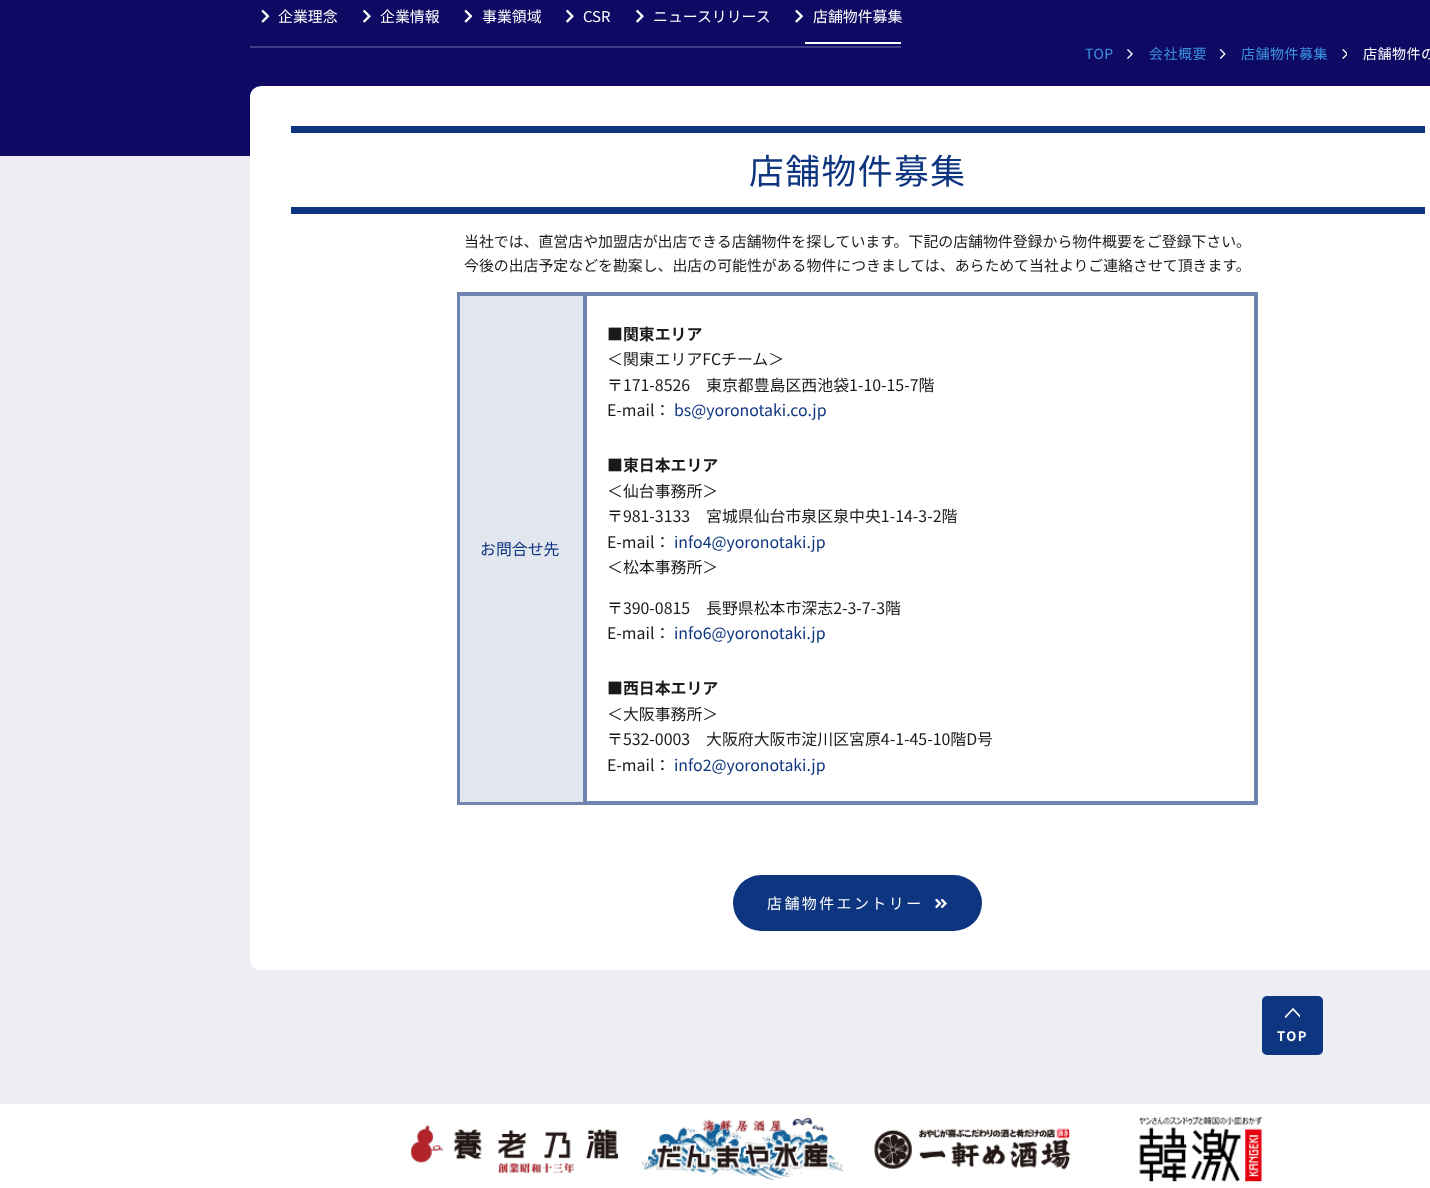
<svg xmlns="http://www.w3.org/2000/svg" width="1430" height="1188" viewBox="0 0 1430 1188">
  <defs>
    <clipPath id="clip1"><rect x="1285" y="1008" width="15" height="11"/></clipPath>
  </defs>
  <rect width="100%" height="100%" fill="#edeef4"/>
  <rect x="0" y="0" width="1430" height="156" fill="#0e0a63"/>
  <rect x="250" y="46" width="651" height="2" fill="#3d3e85"/>
  <image x="261" y="9" width="9" height="14" href="img1.png"/>
  <text x="278" y="22" font-family="Noto Sans JP" font-size="14.9" fill="#ffffff">企業理念</text>
  <image x="363" y="9" width="8" height="14" href="img2.png"/>
  <text x="380" y="22" font-family="Noto Sans JP" font-size="14.9" fill="#ffffff">企業情報</text>
  <image x="464" y="9" width="9" height="14" href="img1.png"/>
  <text x="482" y="22" font-family="Noto Sans JP" font-size="14.9" fill="#ffffff">事業領域</text>
  <image x="566" y="9" width="8" height="14" href="img2.png"/>
  <text x="583" y="22" font-family="Noto Sans JP" font-size="14.9" fill="#ffffff">CSR</text>
  <image x="636" y="9" width="8" height="14" href="img2.png"/>
  <text x="653" y="22" font-family="Noto Sans JP" font-size="14.9" fill="#ffffff">ニュースリリース</text>
  <image x="795" y="9" width="8" height="14" href="img3.png"/>
  <text x="813" y="22" font-family="Noto Sans JP" font-size="14.9" fill="#ffffff">店舗物件募集</text>
  <rect x="805" y="42" width="96" height="2" fill="#ffffff"/>
  <text x="1085" y="59" font-family="Noto Sans JP" font-size="14" letter-spacing="0.5" fill="#3c93e0">TOP</text>
  <image x="1127" y="49" width="6" height="10" href="img4.png"/>
  <text x="1149" y="59" font-family="Noto Sans JP" font-size="14" letter-spacing="0.5" fill="#3c93e0">会社概要</text>
  <image x="1220" y="49" width="6" height="10" href="img5.png"/>
  <text x="1241" y="59" font-family="Noto Sans JP" font-size="14" letter-spacing="0.5" fill="#3c93e0">店舗物件募集</text>
  <image x="1342" y="49" width="5" height="10" href="img6.png"/>
  <text x="1363" y="59" font-family="Noto Sans JP" font-size="14" letter-spacing="0.5" fill="#ffffff">店舗物件の</text>
  <rect x="250" y="86" width="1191" height="884" rx="11" fill="#ffffff"/>
  <rect x="291" y="126" width="1134" height="7" fill="#0e357f"/>
  <rect x="291" y="207" width="1134" height="7" fill="#0e357f"/>
  <text x="749" y="184" font-family="Noto Sans JP" font-size="34.75" letter-spacing="1.5" fill="#0e357f">店舗物件募集</text>
  <text x="464" y="247" font-family="Noto Sans JP" font-size="14.9" fill="#1a1a1a">当社では、直営店や加盟店が出店できる店舗物件を探しています。下記の店舗物件登録から物件概要をご登録下さい。</text>
  <text x="464" y="271" font-family="Noto Sans JP" font-size="14.9" fill="#1a1a1a">今後の出店予定などを勘案し、出店の可能性がある物件につきましては、あらためて当社よりご連絡させて頂きます。</text>
  <rect x="459" y="294" width="797" height="509" fill="none" stroke="#6f84b0" stroke-width="4"/>
  <rect x="460" y="296" width="123" height="506" fill="#e2e6ee"/>
  <rect x="583" y="296" width="4" height="506" fill="#6f84b0"/>
  <text x="480" y="555" font-family="Noto Sans JP" font-size="15.9" fill="#0e357f">お問合せ先</text>
  <text x="607" y="340" font-family="Noto Sans JP" font-size="15.9" font-weight="bold" fill="#1a1a1a">■関東エリア</text>
  <text x="607" y="365" font-family="Noto Sans JP" font-size="15.9" fill="#1a1a1a">＜関東エリアFCチーム＞</text>
  <text x="607" y="391" font-family="Noto Sans JP" font-size="15.9" fill="#1a1a1a">〒171-8526　東京都豊島区西池袋1-10-15-7階</text>
  <text x="607" y="416" font-family="Noto Sans JP" font-size="15.9" fill="#1a1a1a">E-mail：</text>
  <text x="674" y="416" font-family="Noto Sans JP" font-size="15.9" fill="#0e357f">bs@yoronotaki.co.jp</text>
  <text x="607" y="471" font-family="Noto Sans JP" font-size="15.9" font-weight="bold" fill="#1a1a1a">■東日本エリア</text>
  <text x="607" y="497" font-family="Noto Sans JP" font-size="15.9" fill="#1a1a1a">＜仙台事務所＞</text>
  <text x="607" y="522" font-family="Noto Sans JP" font-size="15.9" fill="#1a1a1a">〒981-3133　宮城県仙台市泉区泉中央1-14-3-2階</text>
  <text x="607" y="548" font-family="Noto Sans JP" font-size="15.9" fill="#1a1a1a">E-mail：</text>
  <text x="674" y="548" font-family="Noto Sans JP" font-size="15.9" fill="#0e357f">info4@yoronotaki.jp</text>
  <text x="607" y="573" font-family="Noto Sans JP" font-size="15.9" fill="#1a1a1a">＜松本事務所＞</text>
  <text x="607" y="614" font-family="Noto Sans JP" font-size="15.9" fill="#1a1a1a">〒390-0815　長野県松本市深志2-3-7-3階</text>
  <text x="607" y="639" font-family="Noto Sans JP" font-size="15.9" fill="#1a1a1a">E-mail：</text>
  <text x="674" y="639" font-family="Noto Sans JP" font-size="15.9" fill="#0e357f">info6@yoronotaki.jp</text>
  <text x="607" y="694" font-family="Noto Sans JP" font-size="15.9" font-weight="bold" fill="#1a1a1a">■西日本エリア</text>
  <text x="607" y="720" font-family="Noto Sans JP" font-size="15.9" fill="#1a1a1a">＜大阪事務所＞</text>
  <text x="607" y="745" font-family="Noto Sans JP" font-size="15.9" fill="#1a1a1a">〒532-0003　大阪府大阪市淀川区宮原4-1-45-10階D号</text>
  <text x="607" y="771" font-family="Noto Sans JP" font-size="15.9" fill="#1a1a1a">E-mail：</text>
  <text x="674" y="771" font-family="Noto Sans JP" font-size="15.9" fill="#0e357f">info2@yoronotaki.jp</text>
  <rect x="733" y="875" width="249" height="56" rx="28" fill="#0e357f"/>
  <text x="767" y="909" font-family="Noto Sans JP" font-size="14.9" letter-spacing="2.5" fill="#ffffff">店舗物件エントリー</text>
  <image x="935" y="898" width="12" height="11" href="img7.png"/>
  <rect x="1262" y="996" width="61" height="59" rx="5" fill="#0e357f"/>
  <g clip-path="url(#clip1)">
    <path d="M1285.5 1017L1293 1009L1300.5 1017" fill="none" stroke="#ffffff" stroke-width="1.8" stroke-linecap="round" stroke-linejoin="round"/>
  </g>
  <text x="1277" y="1041" font-family="Noto Sans JP" font-size="13" font-weight="bold" letter-spacing="1.5" fill="#ffffff">TOP</text>
  <rect x="0" y="1104" width="1430" height="84" fill="#ffffff"/>
  <image x="411" y="1125" width="207" height="48" href="img8.png"/>
  <image x="641" y="1118" width="203" height="63" href="img9.png"/>
  <image x="874" y="1128" width="197" height="42" href="img10.png"/>
  <image x="1139" y="1116" width="123" height="66" href="img11.png"/>
</svg>
